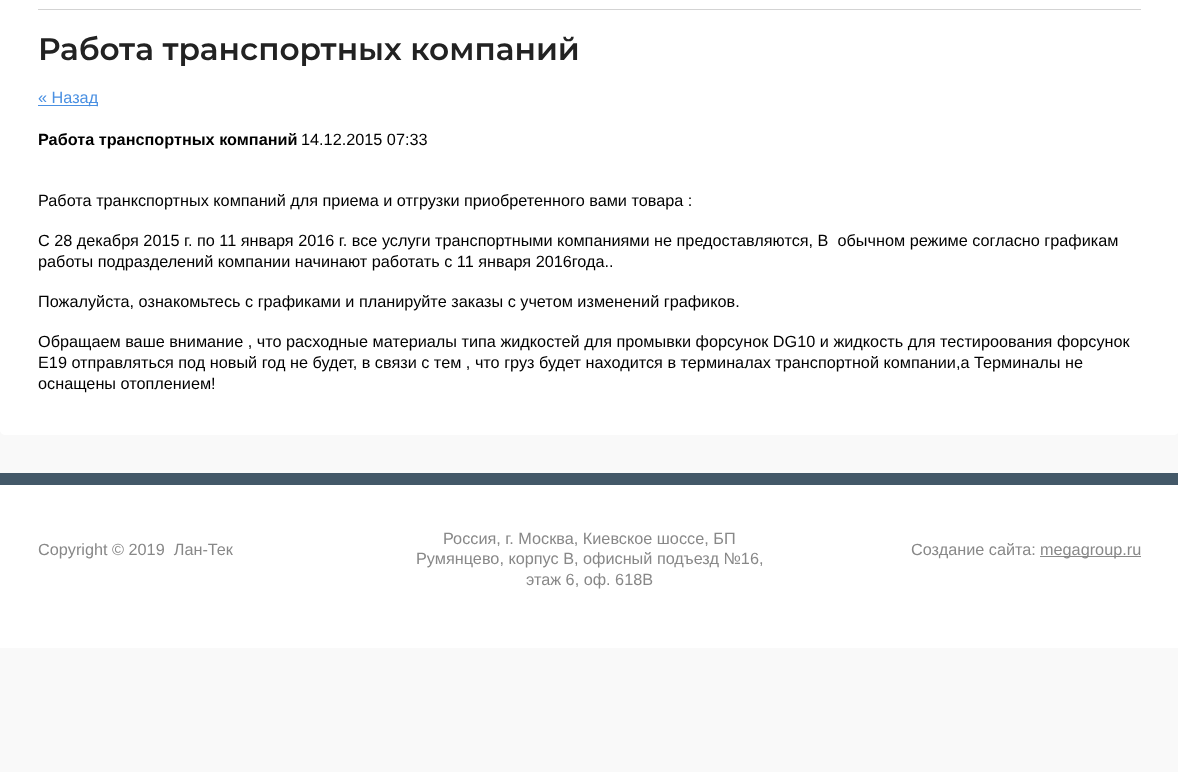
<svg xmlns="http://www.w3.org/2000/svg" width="1178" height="772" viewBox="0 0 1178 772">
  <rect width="100%" height="100%" fill="#f9f9f9"/>
  <rect x="0" y="-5" width="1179" height="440" rx="5" fill="#ffffff"/>
  <rect x="38" y="9" width="1103" height="1" fill="#d3d3d3"/>
  <text x="38" y="60" font-family="Montserrat" font-size="31.25" font-weight="600" fill="#222222">Работа транспортных компаний</text>
  <rect x="38" y="105" width="60" height="1" fill="#4a90e2"/>
  <text x="38" y="103" font-family="Liberation Sans" font-size="16.25" fill="#4a90e2">« Назад</text>
  <text x="38" y="145" font-family="Liberation Sans" font-size="16.25" font-weight="bold" fill="#000000">Работа транспортных компаний</text>
  <text x="301" y="145" font-family="Liberation Sans" font-size="16.25" fill="#000000">14.12.2015 07:33</text>
  <text x="38" y="206" font-family="Liberation Sans" font-size="16.25" fill="#000000">Работа транкспортных компаний для приема и отгрузки приобретенного вами товара :</text>
  <text x="38" y="246" font-family="Liberation Sans" font-size="16.25" fill="#000000" xml:space="preserve">С 28 декабря 2015 г. по 11 января 2016 г. все услуги транспортными компаниями не предоставляются, В  обычном режиме согласно графикам</text>
  <text x="38" y="267" font-family="Liberation Sans" font-size="16.25" fill="#000000">работы подразделений компании начинают работать с 11 января 2016года..</text>
  <text x="38" y="307" font-family="Liberation Sans" font-size="16.25" fill="#000000">Пожалуйста, ознакомьтесь с графиками и планируйте заказы с учетом изменений графиков.</text>
  <text x="38" y="347" font-family="Liberation Sans" font-size="16.25" fill="#000000">Обращаем ваше внимание , что расходные материалы типа жидкостей для промывки форсунок DG10 и жидкость для тестироования форсунок</text>
  <text x="38" y="368" font-family="Liberation Sans" font-size="16.25" fill="#000000">Е19 отправляться под новый год не будет, в связи с тем , что груз будет находится в терминалах транспортной компании,а Терминалы не</text>
  <text x="38" y="389" font-family="Liberation Sans" font-size="16.25" fill="#000000">оснащены отоплением!</text>
  <rect x="0" y="485" width="1178" height="163" fill="#ffffff"/>
  <rect x="0" y="473" width="1178" height="12" fill="#435868"/>
  <text x="38" y="555" font-family="Liberation Sans" font-size="16.25" fill="#888888" xml:space="preserve">Copyright © 2019  Лан-Тек</text>
  <text x="443" y="544" font-family="Liberation Sans" font-size="16.25" fill="#888888">Россия, г. Москва, Киевское шоссе, БП</text>
  <text x="416" y="564" font-family="Liberation Sans" font-size="16.25" fill="#888888">Румянцево, корпус В, офисный подъезд №16,</text>
  <text x="526" y="585" font-family="Liberation Sans" font-size="16.25" fill="#888888">этаж 6, оф. 618В</text>
  <text x="911" y="555" font-family="Liberation Sans" font-size="16.25" fill="#888888">Создание сайта:</text>
  <rect x="1040" y="556" width="101" height="1" fill="#888888"/>
  <text x="1040" y="555" font-family="Liberation Sans" font-size="16.25" fill="#888888">megagroup.ru</text>
</svg>
